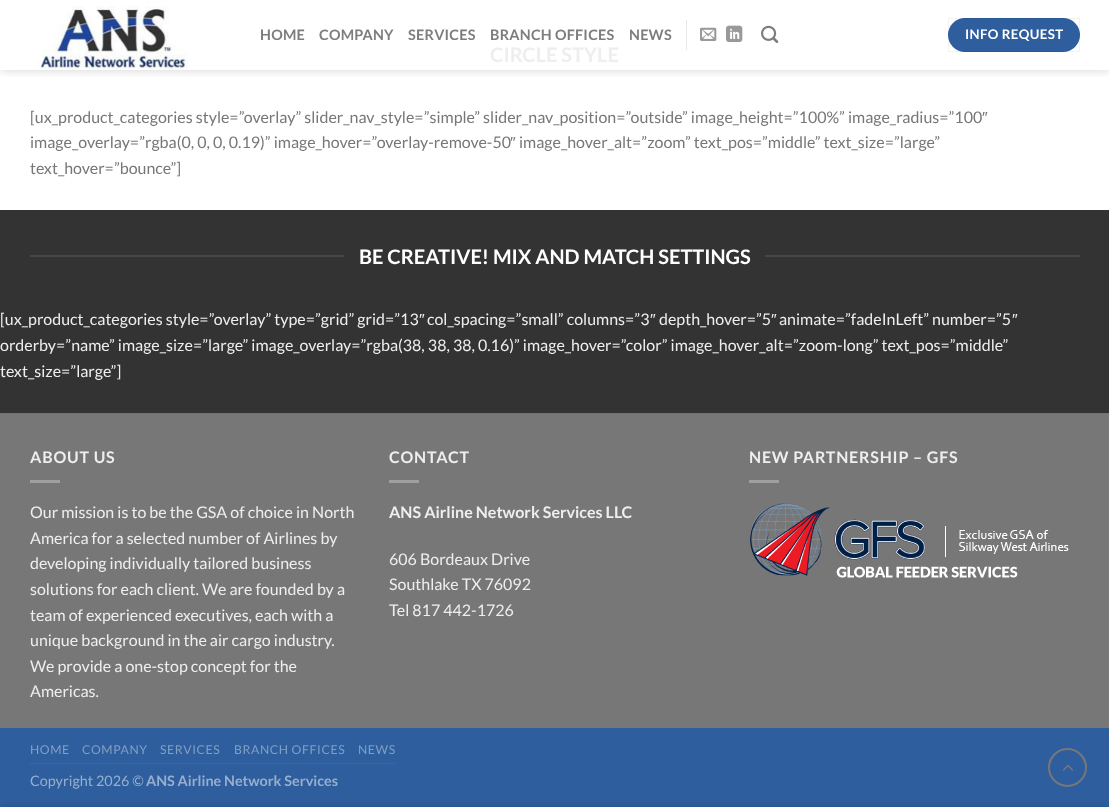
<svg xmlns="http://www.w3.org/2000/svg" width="1109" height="807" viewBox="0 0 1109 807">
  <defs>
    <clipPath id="clip1"><rect x="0" y="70" width="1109" height="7"/></clipPath>
    <filter id="blur1" x="-50%" y="-200%" width="200%" height="500%"><feGaussianBlur stdDeviation="5"/></filter>
    <filter id="blur2" x="-50%" y="-200%" width="200%" height="500%"><feGaussianBlur stdDeviation="4.5"/></filter>
  </defs>
  <rect width="100%" height="100%" fill="#ffffff"/>
  <g clip-path="url(#clip1)">
    <rect x="1" y="1" width="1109" height="70" fill="#000000" fill-opacity="0.15" filter="url(#blur1)"/>
  </g>
  <image x="30" y="0" width="165" height="70" href="img1.png"/>
  <text x="260" y="40" font-family="Lato" font-size="14.4" font-weight="bold" letter-spacing="0.25" fill="#7d7d7d">HOME</text>
  <text x="319" y="40" font-family="Lato" font-size="14.4" font-weight="bold" letter-spacing="0.25" fill="#7d7d7d">COMPANY</text>
  <text x="408" y="40" font-family="Lato" font-size="14.4" font-weight="bold" letter-spacing="0.25" fill="#7d7d7d">SERVICES</text>
  <text x="490" y="40" font-family="Lato" font-size="14.4" font-weight="bold" letter-spacing="0.25" fill="#7d7d7d">BRANCH OFFICES</text>
  <text x="629" y="40" font-family="Lato" font-size="14.4" font-weight="bold" letter-spacing="0.25" fill="#7d7d7d">NEWS</text>
  <rect x="686" y="20" width="1" height="30" fill="#e6e6e6"/>
  <image x="700" y="27" width="17" height="14" href="img2.png"/>
  <image x="726" y="25" width="17" height="17" href="img3.png"/>
  <image x="761" y="25" width="18" height="18" href="img4.png"/>
  <rect x="948" y="18" width="132" height="34" rx="17" fill="#2e5e9d"/>
  <rect x="948.5" y="18.5" width="131" height="33" fill="none" stroke="#000000" stroke-opacity="0.05"/>
  <text x="965" y="39" font-family="Lato" font-size="13.25" font-weight="bold" letter-spacing="0.4" fill="#ffffff">INFO REQUEST</text>
  <text x="490" y="62" font-family="Lato" font-size="20" font-weight="bold" fill="#eeeeee">CIRCLE STYLE</text>
  <text x="30" y="123" font-family="Lato" font-size="16" fill="#777777">[ux_product_categories style=”overlay” slider_nav_style=”simple” slider_nav_position=”outside” image_height=”100%” image_radius=”100</text>
  <text x="982" y="123" font-family="Liberation Sans" font-size="16" fill="#777777">″</text>
  <text x="30" y="148" font-family="Lato" font-size="16" fill="#777777">image_overlay=”rgba(0, 0, 0, 0.19)” image_hover=”overlay-remove-50</text>
  <text x="510" y="148" font-family="Liberation Sans" font-size="16" fill="#777777">″</text>
  <text x="519" y="148" font-family="Lato" font-size="16" fill="#777777">image_hover_alt=”zoom” text_pos=”middle” text_size=”large”</text>
  <text x="30" y="174" font-family="Lato" font-size="16" fill="#777777">text_hover=”bounce”]</text>
  <rect x="0" y="210" width="1109" height="203" fill="#333333"/>
  <rect x="30" y="255" width="314" height="2" fill="#474747"/>
  <text x="359" y="264" font-family="Lato" font-size="20" font-weight="bold" fill="#ffffff">BE CREATIVE! MIX AND MATCH SETTINGS</text>
  <rect x="765" y="255" width="315" height="2" fill="#474747"/>
  <text x="0" y="325" font-family="Lato" font-size="16" fill="#eeeeee">[ux_product_categories style=”overlay” type=”grid” grid=”13</text>
  <text x="419" y="325" font-family="Liberation Sans" font-size="16" fill="#eeeeee">″</text>
  <text x="427" y="325" font-family="Lato" font-size="16" fill="#eeeeee">col_spacing=”small” columns=”3</text>
  <text x="650" y="325" font-family="Liberation Sans" font-size="16" fill="#eeeeee">″</text>
  <text x="659" y="325" font-family="Lato" font-size="16" fill="#eeeeee">depth_hover=”5</text>
  <text x="771" y="325" font-family="Liberation Sans" font-size="16" fill="#eeeeee">″</text>
  <text x="779" y="325" font-family="Lato" font-size="16" fill="#eeeeee">animate=”fadeInLeft” number=”5</text>
  <text x="1012" y="325" font-family="Liberation Sans" font-size="16" fill="#eeeeee">″</text>
  <text x="0" y="351" font-family="Lato" font-size="16" fill="#eeeeee">orderby=”name” image_size=”large” image_overlay=”rgba(38, 38, 38, 0.16)” image_hover=”color” image_hover_alt=”zoom-long” text_pos=”middle”</text>
  <text x="0" y="377" font-family="Lato" font-size="16" fill="#eeeeee">text_size=”large”]</text>
  <rect x="0" y="414" width="1109" height="314" fill="#777777"/>
  <rect x="0" y="413" width="1109" height="1" fill="#717171"/>
  <text x="30" y="463" font-family="Lato" font-size="16" font-weight="bold" letter-spacing="0.8" fill="#eeeeee">ABOUT US</text>
  <rect x="30" y="480" width="30" height="3" fill="#a0a0a0"/>
  <text x="30" y="518" font-family="Lato" font-size="16" fill="#eeeeee">Our mission is to be the GSA of choice in North</text>
  <text x="30" y="544" font-family="Lato" font-size="16" fill="#eeeeee">America for a selected number of Airlines by</text>
  <text x="30" y="569" font-family="Lato" font-size="16" fill="#eeeeee">developing individually tailored business</text>
  <text x="30" y="595" font-family="Lato" font-size="16" fill="#eeeeee">solutions for each client. We are founded by a</text>
  <text x="30" y="621" font-family="Lato" font-size="16" fill="#eeeeee">team of experienced executives, each with a</text>
  <text x="30" y="646" font-family="Lato" font-size="16" fill="#eeeeee">unique background in the air cargo industry.</text>
  <text x="30" y="672" font-family="Lato" font-size="16" fill="#eeeeee">We provide a one-stop concept for the</text>
  <text x="30" y="697" font-family="Lato" font-size="16" fill="#eeeeee">Americas.</text>
  <text x="389" y="463" font-family="Lato" font-size="16" font-weight="bold" letter-spacing="0.8" fill="#eeeeee">CONTACT</text>
  <rect x="389" y="480" width="30" height="3" fill="#a0a0a0"/>
  <text x="389" y="518" font-family="Lato" font-size="16" font-weight="bold" fill="#eeeeee">ANS Airline Network Services LLC</text>
  <text x="389" y="565" font-family="Lato" font-size="16" fill="#eeeeee">606 Bordeaux Drive</text>
  <text x="389" y="590" font-family="Lato" font-size="16" fill="#eeeeee">Southlake TX 76092</text>
  <text x="389" y="616" font-family="Lato" font-size="16" fill="#eeeeee">Tel 817 442-1726</text>
  <text x="749" y="463" font-family="Lato" font-size="16" font-weight="bold" letter-spacing="0.8" fill="#eeeeee">NEW PARTNERSHIP – GFS</text>
  <rect x="749" y="480" width="30" height="3" fill="#a0a0a0"/>
  <image x="750" y="503" width="319" height="75" href="img5.png"/>
  <rect x="0" y="728" width="1109" height="79" fill="#2e5e9d"/>
  <rect x="30" y="763" width="365" height="1" fill="#3b68a3"/>
  <text x="30" y="754" font-family="Lato" font-size="12.25" letter-spacing="0.6" fill="#829fc4">HOME</text>
  <text x="82" y="754" font-family="Lato" font-size="12.25" letter-spacing="0.6" fill="#829fc4">COMPANY</text>
  <text x="160" y="754" font-family="Lato" font-size="12.25" letter-spacing="0.6" fill="#829fc4">SERVICES</text>
  <text x="234" y="754" font-family="Lato" font-size="12.25" letter-spacing="0.6" fill="#829fc4">BRANCH OFFICES</text>
  <text x="358" y="754" font-family="Lato" font-size="12.25" letter-spacing="0.6" fill="#829fc4">NEWS</text>
  <text x="30" y="786" font-family="Lato" font-size="14.4" fill="#97afce">Copyright 2026 ©</text>
  <text x="146" y="786" font-family="Lato" font-size="14.4" font-weight="bold" fill="#97afce">ANS Airline Network Services</text>
  <circle cx="1067.5" cy="767.5" r="18.5" fill="none" stroke="#777777" stroke-width="2"/>
  <image x="1062" y="764" width="12" height="7" href="img6.png"/>
  <rect x="0" y="807" width="1109" height="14" fill="#000000" fill-opacity="0.14" filter="url(#blur2)"/>
</svg>
